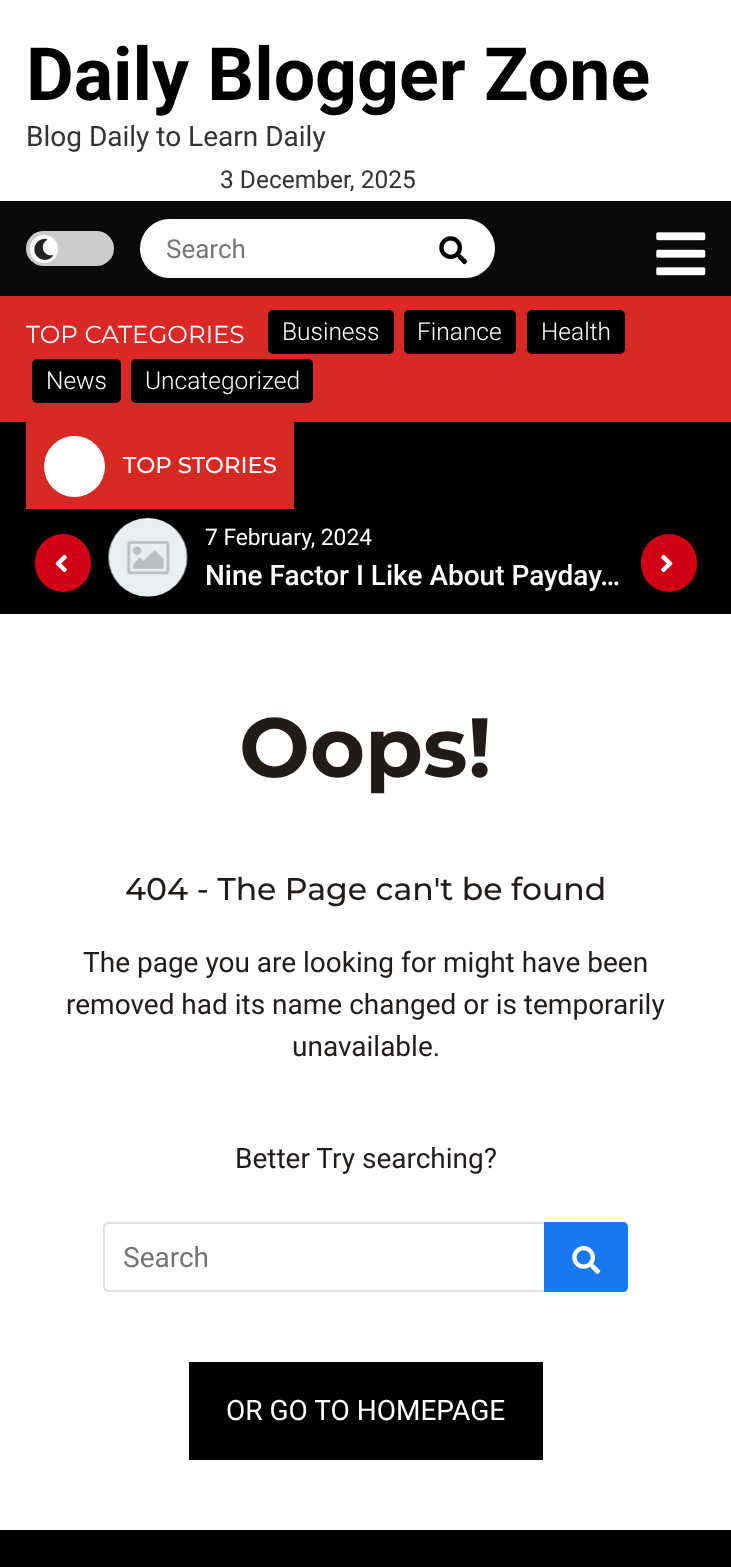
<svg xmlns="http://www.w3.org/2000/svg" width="731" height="1567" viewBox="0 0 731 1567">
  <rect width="100%" height="100%" fill="#ffffff"/>
  <text x="26" y="100" font-family="Roboto" font-size="73.5" font-weight="bold" fill="#000000">Daily Blogger Zone</text>
  <text x="26" y="146" font-family="Roboto" font-size="28" fill="#333333">Blog Daily to Learn Daily</text>
  <text x="220" y="188" font-family="Roboto" font-size="24.5" fill="#333333">3 December, 2025</text>
  <rect x="0" y="201" width="731" height="95" fill="#0a0a0a"/>
  <rect x="26" y="231" width="88" height="35" rx="17.5" fill="#cccccc"/>
  <circle cx="44" cy="249" r="14" fill="#ffffff"/>
  <image x="34" y="238" width="20" height="22" href="img1.png"/>
  <rect x="140" y="219" width="355" height="59" rx="29.5" fill="#ffffff"/>
  <text x="166" y="258" font-family="Roboto" font-size="26" fill="#757575">Search</text>
  <image x="439" y="236" width="29" height="29" href="img2.png"/>
  <image x="656" y="232" width="50" height="44" href="img3.png"/>
  <rect x="0" y="296" width="731" height="126" fill="#d82926"/>
  <text x="26" y="343" font-family="Montserrat" font-size="24.5" fill="#ffffff">TOP CATEGORIES</text>
  <rect x="268" y="310" width="126" height="44" rx="5" fill="#000000"/>
  <text x="282" y="340" font-family="Roboto" font-size="24.5" font-weight="300" fill="#ffffff">Business</text>
  <rect x="404" y="310" width="112" height="44" rx="5" fill="#000000"/>
  <text x="417" y="340" font-family="Roboto" font-size="24.5" font-weight="300" fill="#ffffff">Finance</text>
  <rect x="527" y="310" width="98" height="44" rx="5" fill="#000000"/>
  <text x="541" y="340" font-family="Roboto" font-size="24.5" font-weight="300" fill="#ffffff">Health</text>
  <rect x="32" y="359" width="89" height="44" rx="5" fill="#000000"/>
  <text x="46" y="389" font-family="Roboto" font-size="24.5" font-weight="300" fill="#ffffff">News</text>
  <rect x="131" y="359" width="182" height="44" rx="5" fill="#000000"/>
  <text x="145" y="389" font-family="Roboto" font-size="24.5" font-weight="300" fill="#ffffff">Uncategorized</text>
  <rect x="0" y="422" width="731" height="192" fill="#000000"/>
  <rect x="26" y="422" width="268" height="87" fill="#d72924"/>
  <circle cx="74.5" cy="466.5" r="30.5" fill="#ffffff"/>
  <text x="123" y="473" font-family="Montserrat" font-size="22.75" font-weight="500" fill="#ffffff">TOP STORIES</text>
  <rect x="35" y="534" width="56" height="58" rx="28" fill="#d10014"/>
  <image x="55" y="554" width="12" height="19" href="img4.png"/>
  <image x="108" y="518" width="80" height="79" href="img5.png"/>
  <text x="205" y="545" font-family="Roboto" font-size="22.75" fill="#ffffff">7 February, 2024</text>
  <text x="205" y="585" font-family="Roboto" font-size="28" font-weight="500" fill="#ffffff">Nine Factor I Like About Payday…</text>
  <rect x="641" y="534" width="56" height="58" rx="28" fill="#d10014"/>
  <image x="661" y="554" width="12" height="19" href="img6.png"/>
  <text x="239" y="777" font-family="Montserrat" font-size="84" font-weight="bold" fill="#211b19">Oops!</text>
  <text x="125" y="900" font-family="Montserrat" font-size="31.5" font-weight="500" fill="#211b19">404 - The Page can't be found</text>
  <text x="83" y="972" font-family="Roboto" font-size="28" fill="#211b19">The page you are looking for might have been</text>
  <text x="66" y="1014" font-family="Roboto" font-size="28" fill="#211b19">removed had its name changed or is temporarily</text>
  <text x="292" y="1056" font-family="Roboto" font-size="28" fill="#211b19">unavailable.</text>
  <text x="235" y="1168" font-family="Roboto" font-size="28" fill="#211b19">Better Try searching?</text>
  <path d="M108 1223H557V1291H108C106 1291 104 1289 104 1287V1227C104 1225 106 1223 108 1223Z" fill="none" stroke="#e0e0e0" stroke-width="2"/>
  <text x="123" y="1267" font-family="Roboto" font-size="28" fill="#757575">Search</text>
  <path d="M544 1222H623C626 1222 628 1224 628 1227V1287C628 1290 626 1292 623 1292H544Z" fill="#1778f2"/>
  <image x="572" y="1246" width="29" height="28" href="img7.png"/>
  <rect x="189" y="1362" width="354" height="98" fill="#000000"/>
  <text x="226" y="1420" font-family="Roboto" font-size="28" fill="#ffffff">OR GO TO HOMEPAGE</text>
  <rect x="0" y="1530" width="731" height="37" fill="#000000"/>
</svg>
